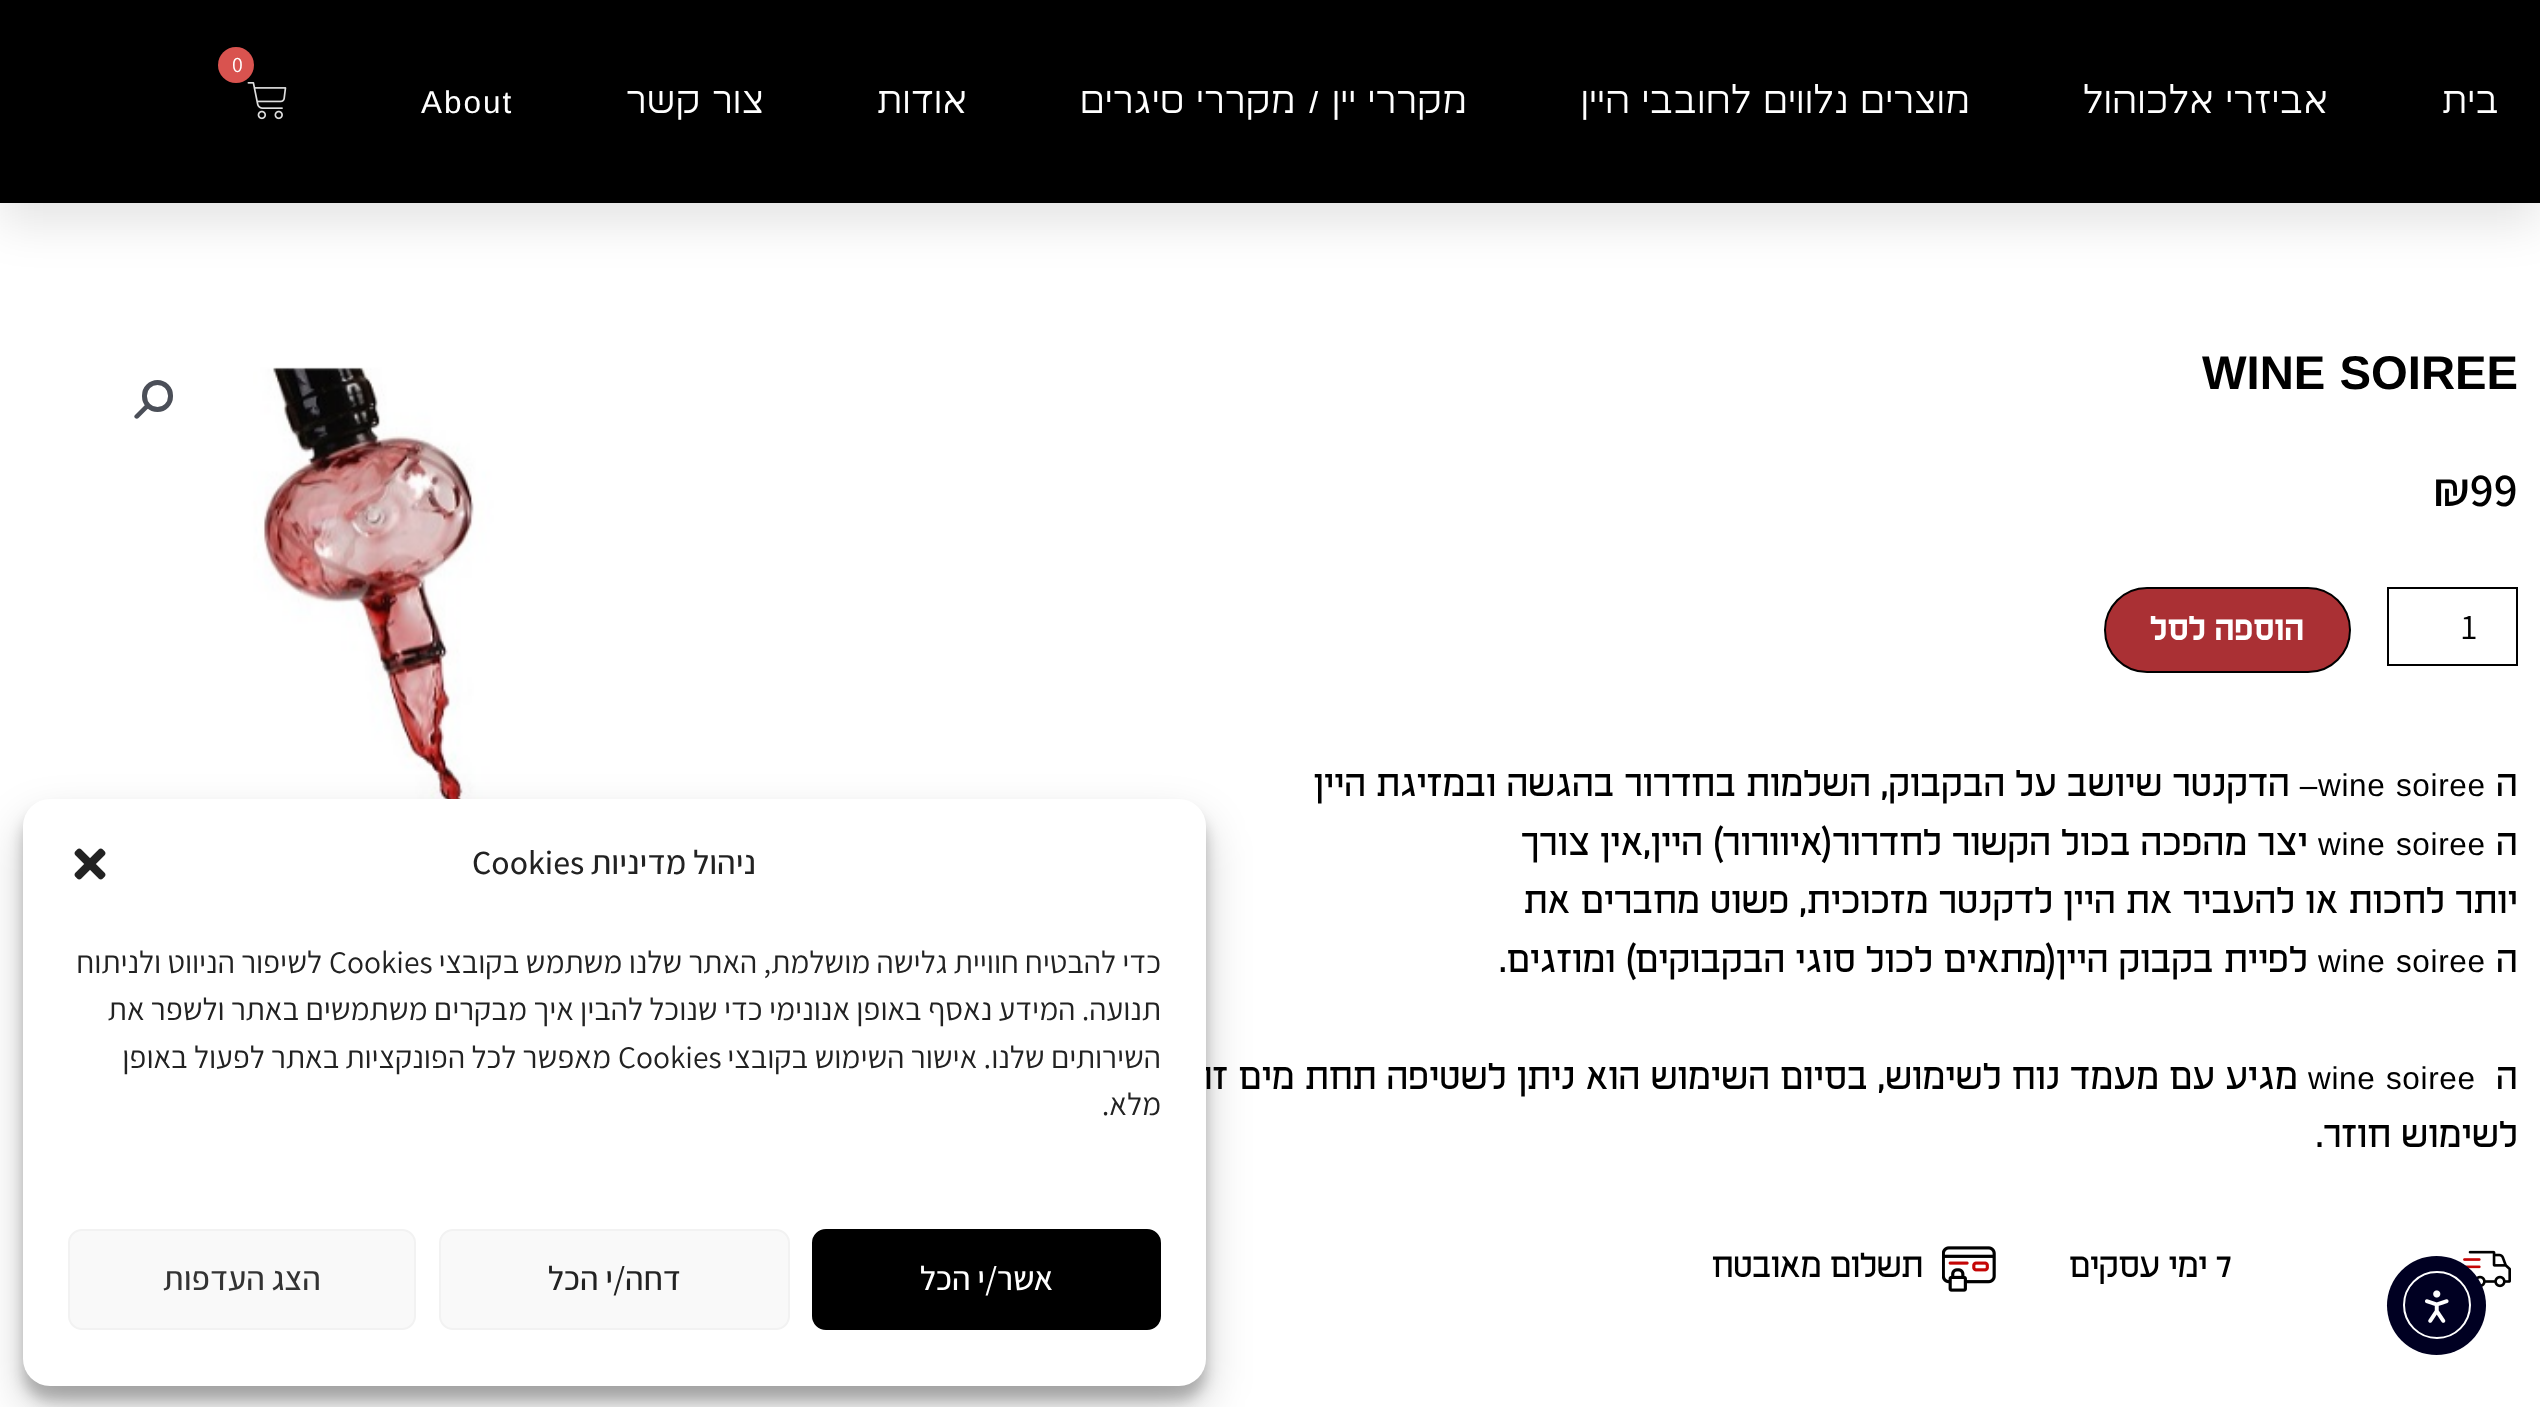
<svg xmlns="http://www.w3.org/2000/svg" width="2540" height="1407" viewBox="0 0 2540 1407">
  <defs>
    <filter id="blur1" x="-50%" y="-200%" width="200%" height="500%"><feGaussianBlur stdDeviation="22.5"/></filter>
    <filter id="blur2" x="-50%" y="-200%" width="200%" height="500%"><feGaussianBlur stdDeviation="7"/></filter>
  </defs>
  <rect width="100%" height="100%" fill="#ffffff"/>
  <rect x="0" y="23" width="2540" height="202" fill="#000000" fill-opacity="0.1" filter="url(#blur1)"/>
  <rect x="0" y="0" width="2540" height="203" fill="#000000"/>
  <image x="247" y="82" width="40" height="38" href="img1.png"/>
  <circle cx="236" cy="65" r="18" fill="#d9534f"/>
  <text x="232" y="72" font-family="Assistant" font-size="22" fill="#ffffff">0</text>
  <text x="2500" y="113" font-family="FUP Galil" font-size="31.5" letter-spacing="2" direction="rtl" fill="#ffffff">בית</text>
  <text x="2329" y="113" font-family="FUP Galil" font-size="31.5" letter-spacing="2" direction="rtl" fill="#ffffff">אביזרי אלכוהול</text>
  <text x="1971" y="113" font-family="FUP Galil" font-size="31.5" letter-spacing="2" direction="rtl" fill="#ffffff">מוצרים נלווים לחובבי היין</text>
  <text x="1468" y="113" font-family="FUP Galil" font-size="31.5" letter-spacing="2" direction="rtl" fill="#ffffff">מקררי יין / מקררי סיגרים</text>
  <text x="968" y="113" font-family="FUP Galil" font-size="31.5" letter-spacing="2" direction="rtl" fill="#ffffff">אודות</text>
  <text x="765" y="113" font-family="FUP Galil" font-size="31.5" letter-spacing="2" direction="rtl" fill="#ffffff">צור קשר</text>
  <text x="421" y="113" font-family="Liberation Sans" font-size="31.5" letter-spacing="2" fill="#ffffff">About</text>
  <text x="2202" y="389" word-spacing="1" font-family="Liberation Sans" font-size="47.25" font-weight="bold" fill="#000000">WINE SOIREE</text>
  <text x="2433" y="506" font-family="Assistant" font-size="47.25" font-weight="600" fill="#000000">₪99</text>
  <rect x="2388" y="588" width="129" height="77" fill="none" stroke="#000000" stroke-width="2"/>
  <text x="2461" y="639" font-family="Assistant" font-size="36" fill="#000000">1</text>
  <rect x="2105" y="588" width="245" height="84" rx="42" fill="#aa3034" stroke="#000000" stroke-width="2"/>
  <text x="2304" y="640" font-family="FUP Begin" font-size="29.25" font-weight="bold" direction="rtl" fill="#ffffff">הוספה לסל</text>
  <text x="2518" y="796" font-family="FUP Begin" font-size="31.5" font-weight="500" letter-spacing="0.67" direction="rtl" fill="#000000">ה</text>
  <text x="2318" y="796" word-spacing="1" font-family="Liberation Sans" font-size="31.5" letter-spacing="0.67" fill="#000000">wine soiree</text>
  <text x="2318" y="796" font-family="Liberation Sans" font-size="31.5" letter-spacing="0.67" direction="rtl" fill="#000000">–</text>
  <text x="2290" y="796" font-family="FUP Begin" font-size="31.5" font-weight="500" letter-spacing="0.67" direction="rtl" fill="#000000">הדקנטר שיושב על הבקבוק, השלמות בחדרור בהגשה ובמזיגת היין</text>
  <text x="2518" y="855" font-family="FUP Begin" font-size="31.5" font-weight="500" letter-spacing="0.67" direction="rtl" fill="#000000">ה</text>
  <text x="2318" y="855" word-spacing="1" font-family="Liberation Sans" font-size="31.5" letter-spacing="0.67" fill="#000000">wine soiree</text>
  <text x="2308" y="855" font-family="FUP Begin" font-size="31.5" font-weight="500" letter-spacing="0.67" direction="rtl" fill="#000000">יצר מהפכה בכול הקשור לחדרור(איוורור) היין,אין צורך</text>
  <text x="2518" y="913" font-family="FUP Begin" font-size="31.5" font-weight="500" letter-spacing="0.67" direction="rtl" fill="#000000">יותר לחכות או להעביר את היין לדקנטר מזכוכית, פשוט מחברים את</text>
  <text x="2518" y="972" font-family="FUP Begin" font-size="31.5" font-weight="500" letter-spacing="0.67" direction="rtl" fill="#000000">ה</text>
  <text x="2318" y="972" word-spacing="1" font-family="Liberation Sans" font-size="31.5" letter-spacing="0.67" fill="#000000">wine soiree</text>
  <text x="2308" y="972" font-family="FUP Begin" font-size="31.5" font-weight="500" letter-spacing="0.67" direction="rtl" fill="#000000">לפיית בקבוק היין(מתאים לכול סוגי הבקבוקים) ומוזגים.</text>
  <text x="2518" y="1089" font-family="FUP Begin" font-size="31.5" font-weight="500" letter-spacing="0.67" direction="rtl" fill="#000000">ה</text>
  <text x="2308" y="1089" word-spacing="1" font-family="Liberation Sans" font-size="31.5" letter-spacing="0.67" fill="#000000">wine soiree</text>
  <text x="2298" y="1089" font-family="FUP Begin" font-size="31.5" font-weight="500" letter-spacing="0.67" direction="rtl" fill="#000000">מגיע עם מעמד נוח לשימוש, בסיום השימוש הוא ניתן לשטיפה תחת מים זורמים ומוכן</text>
  <text x="2518" y="1147" font-family="FUP Begin" font-size="31.5" font-weight="500" letter-spacing="0.67" direction="rtl" fill="#000000">לשימוש חוזר.</text>
  <image x="2463" y="1250" width="48" height="38" href="img2.png"/>
  <text x="2216" y="1277" font-family="FUP Begin" font-size="29.25" font-weight="500" fill="#000000">7</text>
  <text x="2207" y="1277" font-family="FUP Begin" font-size="29.25" font-weight="500" direction="rtl" fill="#000000">ימי עסקים</text>
  <image x="1942" y="1246" width="54" height="46" href="img3.png"/>
  <text x="1923" y="1277" font-family="FUP Begin" font-size="29.25" font-weight="500" direction="rtl" fill="#000000">תשלום מאובטח</text>
  <image x="140" y="367" width="582" height="432" href="img4.png"/>
  <rect x="144.5" y="382.5" width="26" height="27" rx="13" fill="none" stroke="#4b4f58" stroke-width="5"/>
  <path d="M148 405.5C148.5 406.5 148.5 407.5 148 408.5L138.5 418C137.5 419 136 419 135 418C134 417 134 416 135 415L144.5 405.5C145.5 404.5 147 404.5 148 405.5Z" fill="#4b4f58"/>
  <circle cx="2436.5" cy="1305.5" r="49.5" fill="#000022"/>
  <circle cx="2437" cy="1305" r="33" fill="none" stroke="#ffffff" stroke-width="2"/>
  <image x="2425" y="1290" width="24" height="33" href="img5.png"/>
  <rect x="23" y="812" width="1183" height="588" rx="27" fill="#000000" fill-opacity="0.23" filter="url(#blur2)"/>
  <rect x="23" y="821" width="1183" height="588" rx="27" fill="#000000" fill-opacity="0.19" filter="url(#blur1)"/>
  <rect x="23" y="799" width="1183" height="587" rx="27" fill="#ffffff"/>
  <text x="756" y="874" font-family="Assistant" font-size="33.75" font-weight="500" direction="rtl" fill="#222222">ניהול מדיניות</text>
  <text x="472" y="874" font-family="Assistant" font-size="33.75" font-weight="500" fill="#222222">Cookies</text>
  <image x="74" y="848" width="32" height="32" href="img6.png"/>
  <text x="1161" y="973" font-family="Assistant" font-size="31.5" direction="rtl" fill="#222222">כדי להבטיח חוויית גלישה מושלמת, האתר שלנו משתמש בקובצי</text>
  <text x="329" y="973" font-family="Assistant" font-size="31.5" fill="#222222">Cookies</text>
  <text x="322" y="973" font-family="Assistant" font-size="31.5" direction="rtl" fill="#222222">לשיפור הניווט ולניתוח</text>
  <text x="1161" y="1020" font-family="Assistant" font-size="31.5" direction="rtl" fill="#222222">תנועה. המידע נאסף באופן אנונימי כדי שנוכל להבין איך מבקרים משתמשים באתר ולשפר את</text>
  <text x="1161" y="1068" font-family="Assistant" font-size="31.5" direction="rtl" fill="#222222">השירותים שלנו. אישור השימוש בקובצי</text>
  <text x="618" y="1068" font-family="Assistant" font-size="31.5" fill="#222222">Cookies</text>
  <text x="611" y="1068" font-family="Assistant" font-size="31.5" direction="rtl" fill="#222222">מאפשר לכל הפונקציות באתר לפעול באופן</text>
  <text x="1161" y="1115" font-family="Assistant" font-size="31.5" direction="rtl" fill="#222222">מלא.</text>
  <rect x="813" y="1230" width="347" height="99" rx="13" fill="#000000" stroke="#000000" stroke-width="2"/>
  <text x="1053" y="1290" font-family="Assistant" font-size="33.75" font-weight="500" direction="rtl" fill="#ffffff">אשר/י הכל</text>
  <rect x="440" y="1230" width="349" height="99" rx="13" fill="#f9f9f9" stroke="#f2f2f2" stroke-width="2"/>
  <text x="681" y="1290" font-family="Assistant" font-size="33.75" font-weight="500" direction="rtl" fill="#222222">דחה/י הכל</text>
  <rect x="69" y="1230" width="346" height="99" rx="13" fill="#f9f9f9" stroke="#f2f2f2" stroke-width="2"/>
  <text x="321" y="1290" font-family="Assistant" font-size="33.75" font-weight="500" direction="rtl" fill="#333333">הצג העדפות</text>
</svg>
